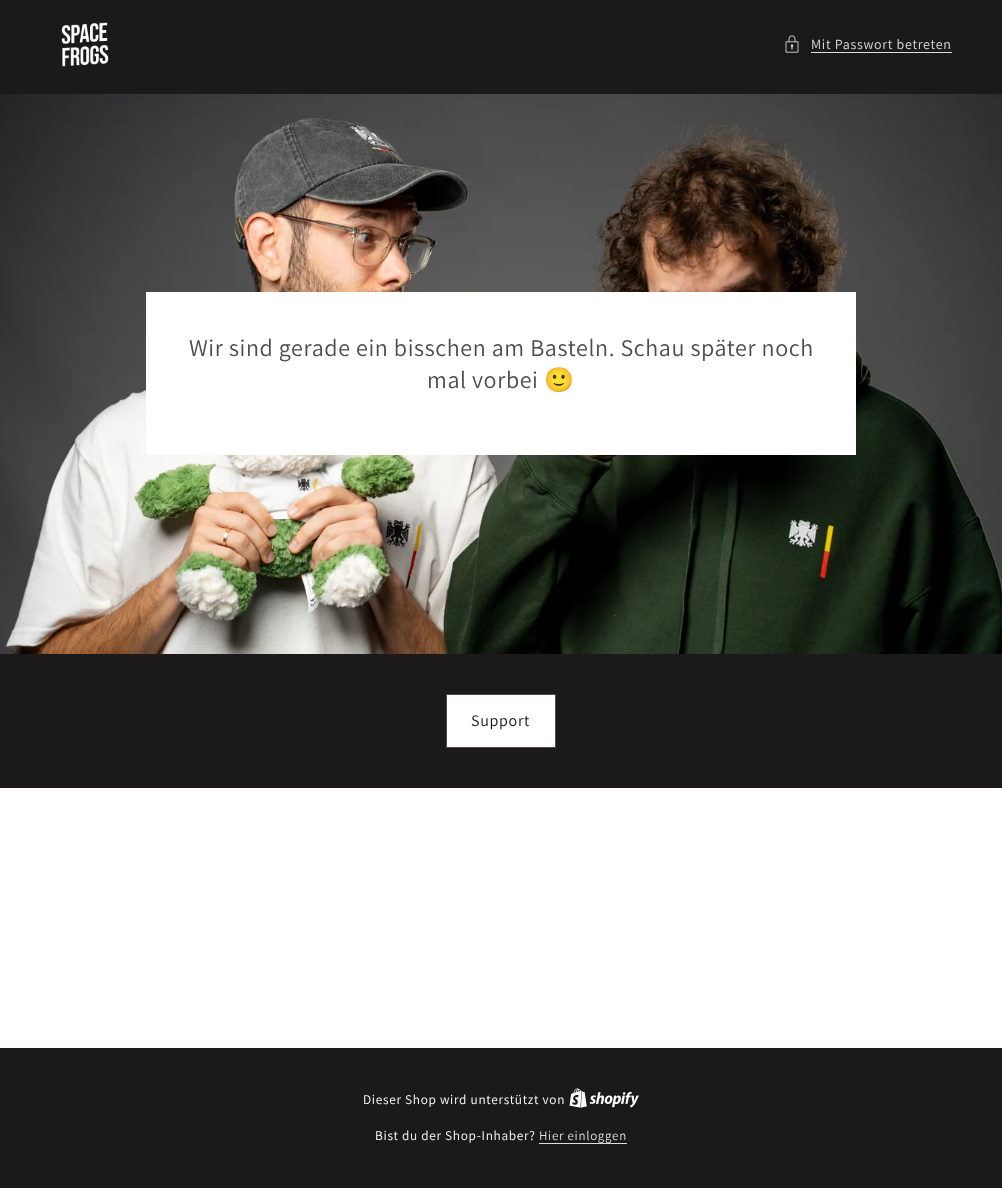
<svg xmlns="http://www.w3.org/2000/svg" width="1002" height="1188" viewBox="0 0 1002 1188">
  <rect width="100%" height="100%" fill="#ffffff"/>
  <rect x="0" y="0" width="1002" height="94" fill="#1b1919"/>
  <image x="61" y="22" width="48" height="45" href="img1.png"/>
  <image x="785" y="35" width="14" height="18" href="img2.png"/>
  <text x="811" y="49" font-family="Assistant" font-size="14" letter-spacing="0.7" fill="#dddddd">Mit Passwort betreten</text>
  <rect x="811" y="52" width="141" height="1" fill="#dddddd"/>
  <image x="0" y="94" width="1002" height="560" href="img3.png"/>
  <rect x="146" y="292" width="710" height="163" fill="#ffffff"/>
  <text x="189" y="356" font-family="Assistant" font-size="24" letter-spacing="0.6" fill="#4c4c4c">Wir sind gerade ein bisschen am Basteln. Schau später noch</text>
  <text x="427" y="388" font-family="Assistant" font-size="24" letter-spacing="0.6" fill="#4c4c4c">mal vorbei</text>
  <text x="544" y="388" font-family="Noto Color Emoji" font-size="24" letter-spacing="0.6" fill="#4c4c4c">🙂</text>
  <rect x="0" y="654" width="1002" height="134" fill="#1b1919"/>
  <rect x="446.5" y="694.5" width="109" height="53" fill="#ffffff" stroke="#4c4c4c"/>
  <text x="471" y="726" font-family="Assistant" font-size="16" letter-spacing="0.7" fill="#121212">Support</text>
  <rect x="0" y="1048" width="1002" height="140" fill="#1b1919"/>
  <text x="363" y="1104" font-family="Assistant" font-size="13.3" letter-spacing="0.7" fill="#ffffff">Dieser Shop wird unterstützt von</text>
  <image x="569" y="1088" width="70" height="20" href="img4.png"/>
  <text x="375" y="1140" font-family="Assistant" font-size="13.3" letter-spacing="0.7" fill="#ffffff">Bist du der Shop-Inhaber?</text>
  <text x="539" y="1140" font-family="Assistant" font-size="13" letter-spacing="0.7" fill="#dddddd">Hier einloggen</text>
  <rect x="539" y="1143" width="88" height="1" fill="#dddddd"/>
</svg>
